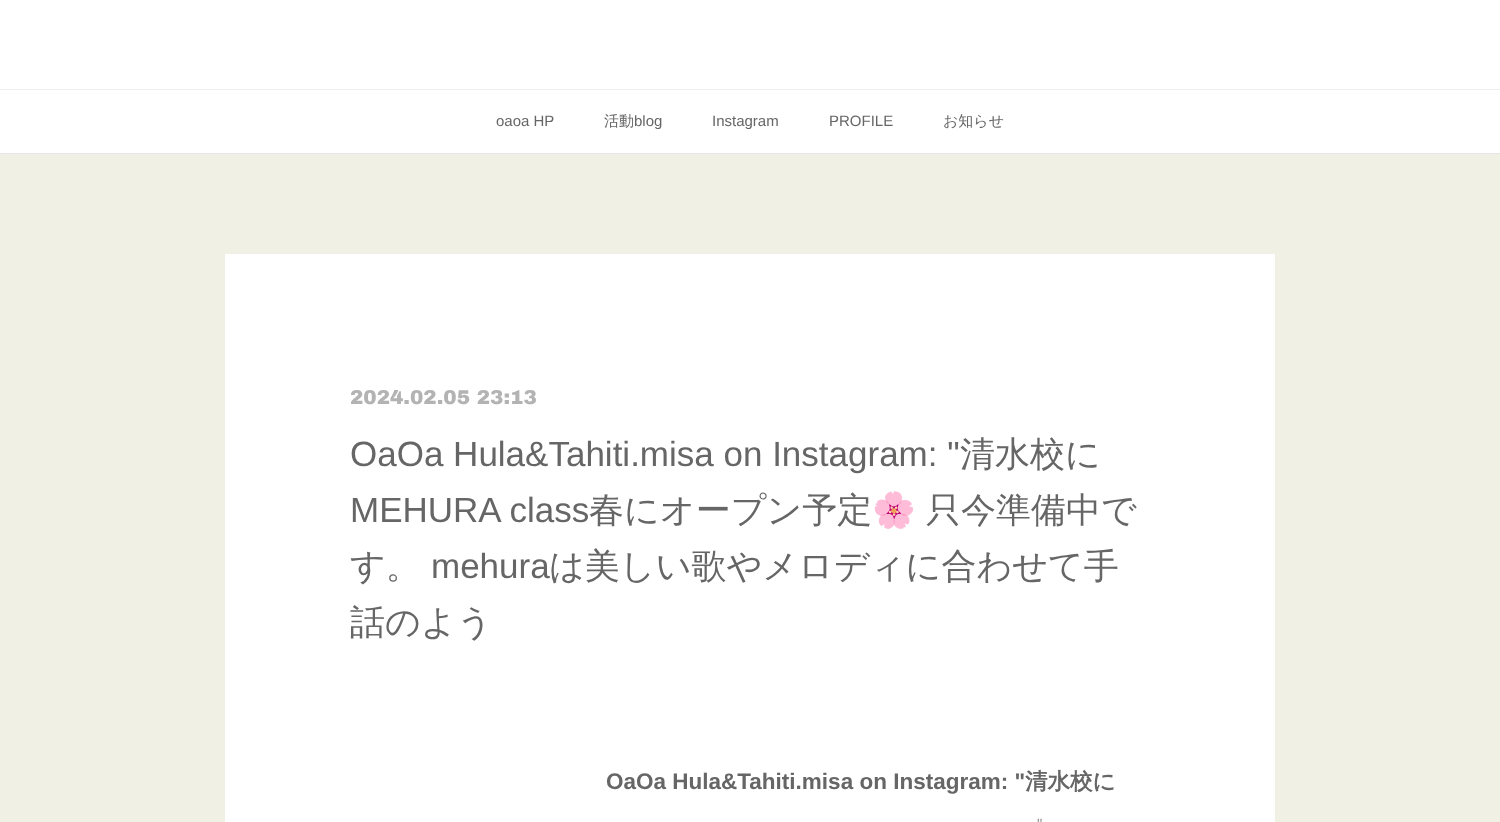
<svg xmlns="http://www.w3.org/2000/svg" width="1500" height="822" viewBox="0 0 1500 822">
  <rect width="100%" height="100%" fill="#f1f0e5"/>
  <rect x="0" y="0" width="1500" height="89" fill="#ffffff"/>
  <rect x="0" y="89" width="1500" height="1" fill="#eeeeee"/>
  <rect x="0" y="90" width="1500" height="63" fill="#ffffff"/>
  <rect x="0" y="153" width="1500" height="1" fill="#e6e6e6"/>
  <text x="496" y="126" font-family="Liberation Sans" font-size="15" fill="#666666">oaoa HP</text>
  <text x="604" y="126" font-family="WenQuanYi Zen Hei" font-size="15" font-weight="500" fill="#666666">活動</text>
  <text x="634" y="126" font-family="Liberation Sans" font-size="15" fill="#666666">blog</text>
  <text x="712" y="126" font-family="Liberation Sans" font-size="15" fill="#666666">Instagram</text>
  <text x="829" y="126" font-family="Liberation Sans" font-size="15" fill="#666666">PROFILE</text>
  <text x="943" y="126" font-family="WenQuanYi Zen Hei" font-size="15" font-weight="500" fill="#666666">お知らせ</text>
  <rect x="225" y="254" width="1050" height="568" fill="#ffffff"/>
  <text x="350" y="404" font-family="Archivo Black" font-size="20" font-weight="900" fill="#b3b3b3">2024.02.05 23:13</text>
  <text x="350" y="466" font-family="Liberation Sans" font-size="35" fill="#666666">OaOa Hula&amp;Tahiti.misa on Instagram: "</text>
  <text x="960" y="466" font-family="WenQuanYi Zen Hei" font-size="35" font-weight="500" fill="#666666">清水校に</text>
  <text x="350" y="522" font-family="Liberation Sans" font-size="35" fill="#666666">MEHURA class</text>
  <text x="589" y="522" font-family="WenQuanYi Zen Hei" font-size="35" font-weight="500" fill="#666666">春にオープン予定</text>
  <text x="872" y="522" font-family="Noto Color Emoji" font-size="35" fill="#666666">🌸</text>
  <text x="926" y="522" font-family="WenQuanYi Zen Hei" font-size="35" font-weight="500" fill="#666666">只今準備中で</text>
  <text x="350" y="578" font-family="WenQuanYi Zen Hei" font-size="35" font-weight="500" fill="#666666">す。</text>
  <text x="431" y="578" font-family="Liberation Sans" font-size="35" fill="#666666">mehura</text>
  <text x="549" y="578" font-family="WenQuanYi Zen Hei" font-size="35" font-weight="500" fill="#666666">は美しい歌やメロディに合わせて手</text>
  <text x="350" y="634" font-family="WenQuanYi Zen Hei" font-size="35" font-weight="500" fill="#666666">話のよう</text>
  <text x="606" y="789" font-family="Liberation Sans" font-size="22.5" font-weight="bold" fill="#666666">OaOa Hula&amp;Tahiti.misa on Instagram: "</text>
  <text x="1025" y="789" font-family="WenQuanYi Zen Hei" font-size="22.5" font-weight="bold" fill="#666666">清水校に</text>
  <text x="1037" y="829" font-family="Liberation Sans" font-size="15" fill="#949494">"</text>
</svg>
